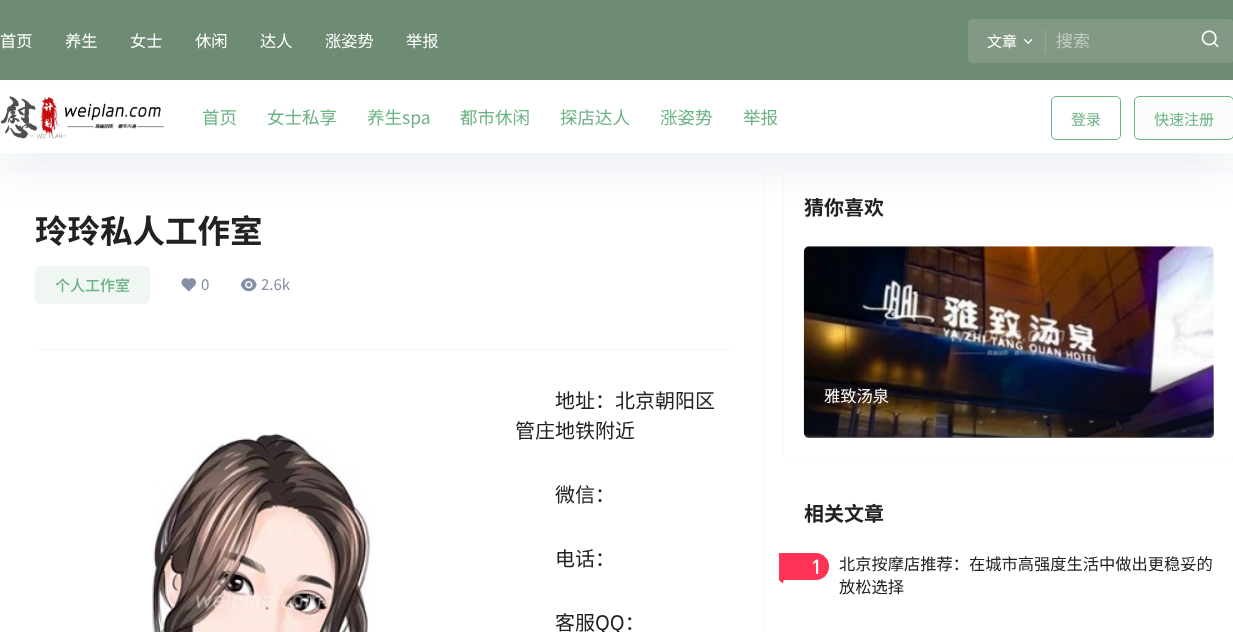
<svg xmlns="http://www.w3.org/2000/svg" width="1233" height="632" viewBox="0 0 1233 632">
  <defs>
    <filter id="blur1" x="-50%" y="-200%" width="200%" height="500%"><feGaussianBlur stdDeviation="1"/></filter>
    <filter id="blur2" x="-50%" y="-200%" width="200%" height="500%"><feGaussianBlur stdDeviation="25"/></filter>
    <linearGradient id="g1" gradientUnits="userSpaceOnUse" x1="1009" y1="438" x2="1009" y2="365"><stop offset="0" stop-color="#090f1d" stop-opacity="0.65"/><stop offset="1" stop-color="#090f1d" stop-opacity="0"/></linearGradient>
  </defs>
  <rect width="100%" height="100%" fill="#ffffff"/>
  <rect x="0" y="171" width="764" height="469" rx="5" fill="#627c99" fill-opacity="0.1" filter="url(#blur1)"/>
  <rect x="0" y="171" width="764" height="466" rx="5" fill="#ffffff"/>
  <rect x="784" y="171" width="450" height="287" rx="5" fill="#627c99" fill-opacity="0.1" filter="url(#blur1)"/>
  <rect x="784" y="171" width="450" height="287" rx="5" fill="#ffffff"/>
  <rect x="0" y="6" width="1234" height="153" fill="#113a5d" fill-opacity="0.1" filter="url(#blur2)"/>
  <rect x="0" y="0" width="1233" height="80" fill="#6e8b74"/>
  <text x="0" y="47" font-family="Noto Sans CJK SC" font-size="16.25" fill="#ffffff">首页</text>
  <text x="65" y="47" font-family="Noto Sans CJK SC" font-size="16.25" fill="#ffffff">养生</text>
  <text x="130" y="47" font-family="Noto Sans CJK SC" font-size="16.25" fill="#ffffff">女士</text>
  <text x="195" y="47" font-family="Noto Sans CJK SC" font-size="16.25" fill="#ffffff">休闲</text>
  <text x="260" y="47" font-family="Noto Sans CJK SC" font-size="16.25" fill="#ffffff">达人</text>
  <text x="325" y="47" font-family="Noto Sans CJK SC" font-size="16.25" fill="#ffffff">涨姿势</text>
  <text x="406" y="47" font-family="Noto Sans CJK SC" font-size="16.25" fill="#ffffff">举报</text>
  <rect x="968" y="19" width="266" height="44" rx="5" fill="#829986"/>
  <rect x="1045" y="29" width="1" height="24" fill="#96a999"/>
  <text x="987" y="47" font-family="Noto Sans CJK SC" font-size="15" fill="#ffffff">文章</text>
  <image x="1023" y="39" width="10" height="5" href="img1.png"/>
  <text x="1056" y="47" font-family="Noto Sans CJK SC" font-size="17" fill="#c1ccc3">搜索</text>
  <image x="1201" y="30" width="18" height="18" href="img2.png"/>
  <rect x="0" y="81" width="1233" height="72" fill="#ffffff"/>
  <rect x="0" y="80" width="1233" height="1" fill="#fcfcfc"/>
  <image x="0" y="96" width="164" height="43" href="img3.png"/>
  <text x="202" y="124" font-family="Noto Sans CJK SC" font-size="17.5" fill="#6cb386">首页</text>
  <text x="267" y="124" font-family="Noto Sans CJK SC" font-size="17.5" fill="#6cb386">女士私享</text>
  <text x="367" y="124" font-family="Noto Sans CJK SC" font-size="17.5" fill="#6cb386">养生spa</text>
  <text x="460" y="124" font-family="Noto Sans CJK SC" font-size="17.5" fill="#6cb386">都市休闲</text>
  <text x="560" y="124" font-family="Noto Sans CJK SC" font-size="17.5" fill="#6cb386">探店达人</text>
  <text x="660" y="124" font-family="Noto Sans CJK SC" font-size="17.5" fill="#6cb386">涨姿势</text>
  <text x="743" y="124" font-family="Noto Sans CJK SC" font-size="17.5" fill="#6cb386">举报</text>
  <rect x="1051.5" y="96.5" width="69" height="43" rx="4.5" fill="none" stroke="#6cb386"/>
  <text x="1071" y="125" font-family="Noto Sans CJK SC" font-size="15" fill="#6cb386">登录</text>
  <rect x="1134.5" y="96.5" width="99" height="43" rx="4.5" fill="#fbfdfb" stroke="#6cb386"/>
  <text x="1154" y="125" font-family="Noto Sans CJK SC" font-size="15" fill="#6cb386">快速注册</text>
  <rect x="35" y="349" width="694" height="1" fill="#f5f6f7"/>
  <text x="35" y="243" font-family="Noto Sans CJK SC" font-size="32.5" font-weight="bold" fill="#222222">玲玲私人工作室</text>
  <rect x="35" y="266" width="115" height="38" rx="5" fill="#f0f7f3"/>
  <text x="55" y="291" font-family="Noto Sans CJK SC" font-size="15" font-weight="500" fill="#6cb386">个人工作室</text>
  <image x="181" y="278" width="15" height="14" href="img4.png"/>
  <text x="201" y="290" font-family="Noto Sans CJK SC" font-size="15" fill="#8590a6">0</text>
  <image x="240" y="278" width="17" height="14" href="img5.png"/>
  <text x="261" y="290" font-family="Noto Sans CJK SC" font-size="15" fill="#8590a6">2.6k</text>
  <text x="555" y="408" font-family="Noto Sans CJK SC" font-size="20" fill="#222222">地址：北京朝阳区</text>
  <text x="515" y="438" font-family="Noto Sans CJK SC" font-size="20" fill="#222222">管庄地铁附近</text>
  <image x="152" y="433" width="222" height="199" href="img6.png"/>
  <text x="555" y="502" font-family="Noto Sans CJK SC" font-size="20" fill="#222222">微信：</text>
  <text x="555" y="566" font-family="Noto Sans CJK SC" font-size="20" fill="#222222">电话：</text>
  <text x="555" y="630" font-family="Noto Sans CJK SC" font-size="20" fill="#222222">客服QQ：</text>
  <text x="804" y="215" font-family="Noto Sans CJK SC" font-size="20" font-weight="bold" fill="#222222">猜你喜欢</text>
  <image x="803" y="246" width="411" height="192" href="img7.png"/>
  <path d="M804 365H1214V433C1214 436 1212 438 1209 438H809C806 438 804 436 804 433Z" fill="url(#g1)"/>
  <text x="824" y="402" font-family="Noto Sans CJK SC" font-size="16.25" fill="#ffffff">雅致汤泉</text>
  <text x="804" y="521" font-family="Noto Sans CJK SC" font-size="20" font-weight="bold" fill="#222222">相关文章</text>
  <path d="M779 553H816C823 553 829 559 829 566V567C829 574 823 580 816 580H779Z" fill="#ff3355"/>
  <text x="811" y="574" font-family="DIN" font-size="20" font-weight="500" fill="#ffffff">1</text>
  <path d="M783 583.5L779 580.5L784 578Z" fill="#ff3355"/>
  <text x="839" y="570" font-family="Noto Sans CJK SC" font-size="16.25" fill="#222222">北京按摩店推荐：在城市高强度生活中做出更稳妥的</text>
  <text x="839" y="593" font-family="Noto Sans CJK SC" font-size="16.25" fill="#222222">放松选择</text>
</svg>
